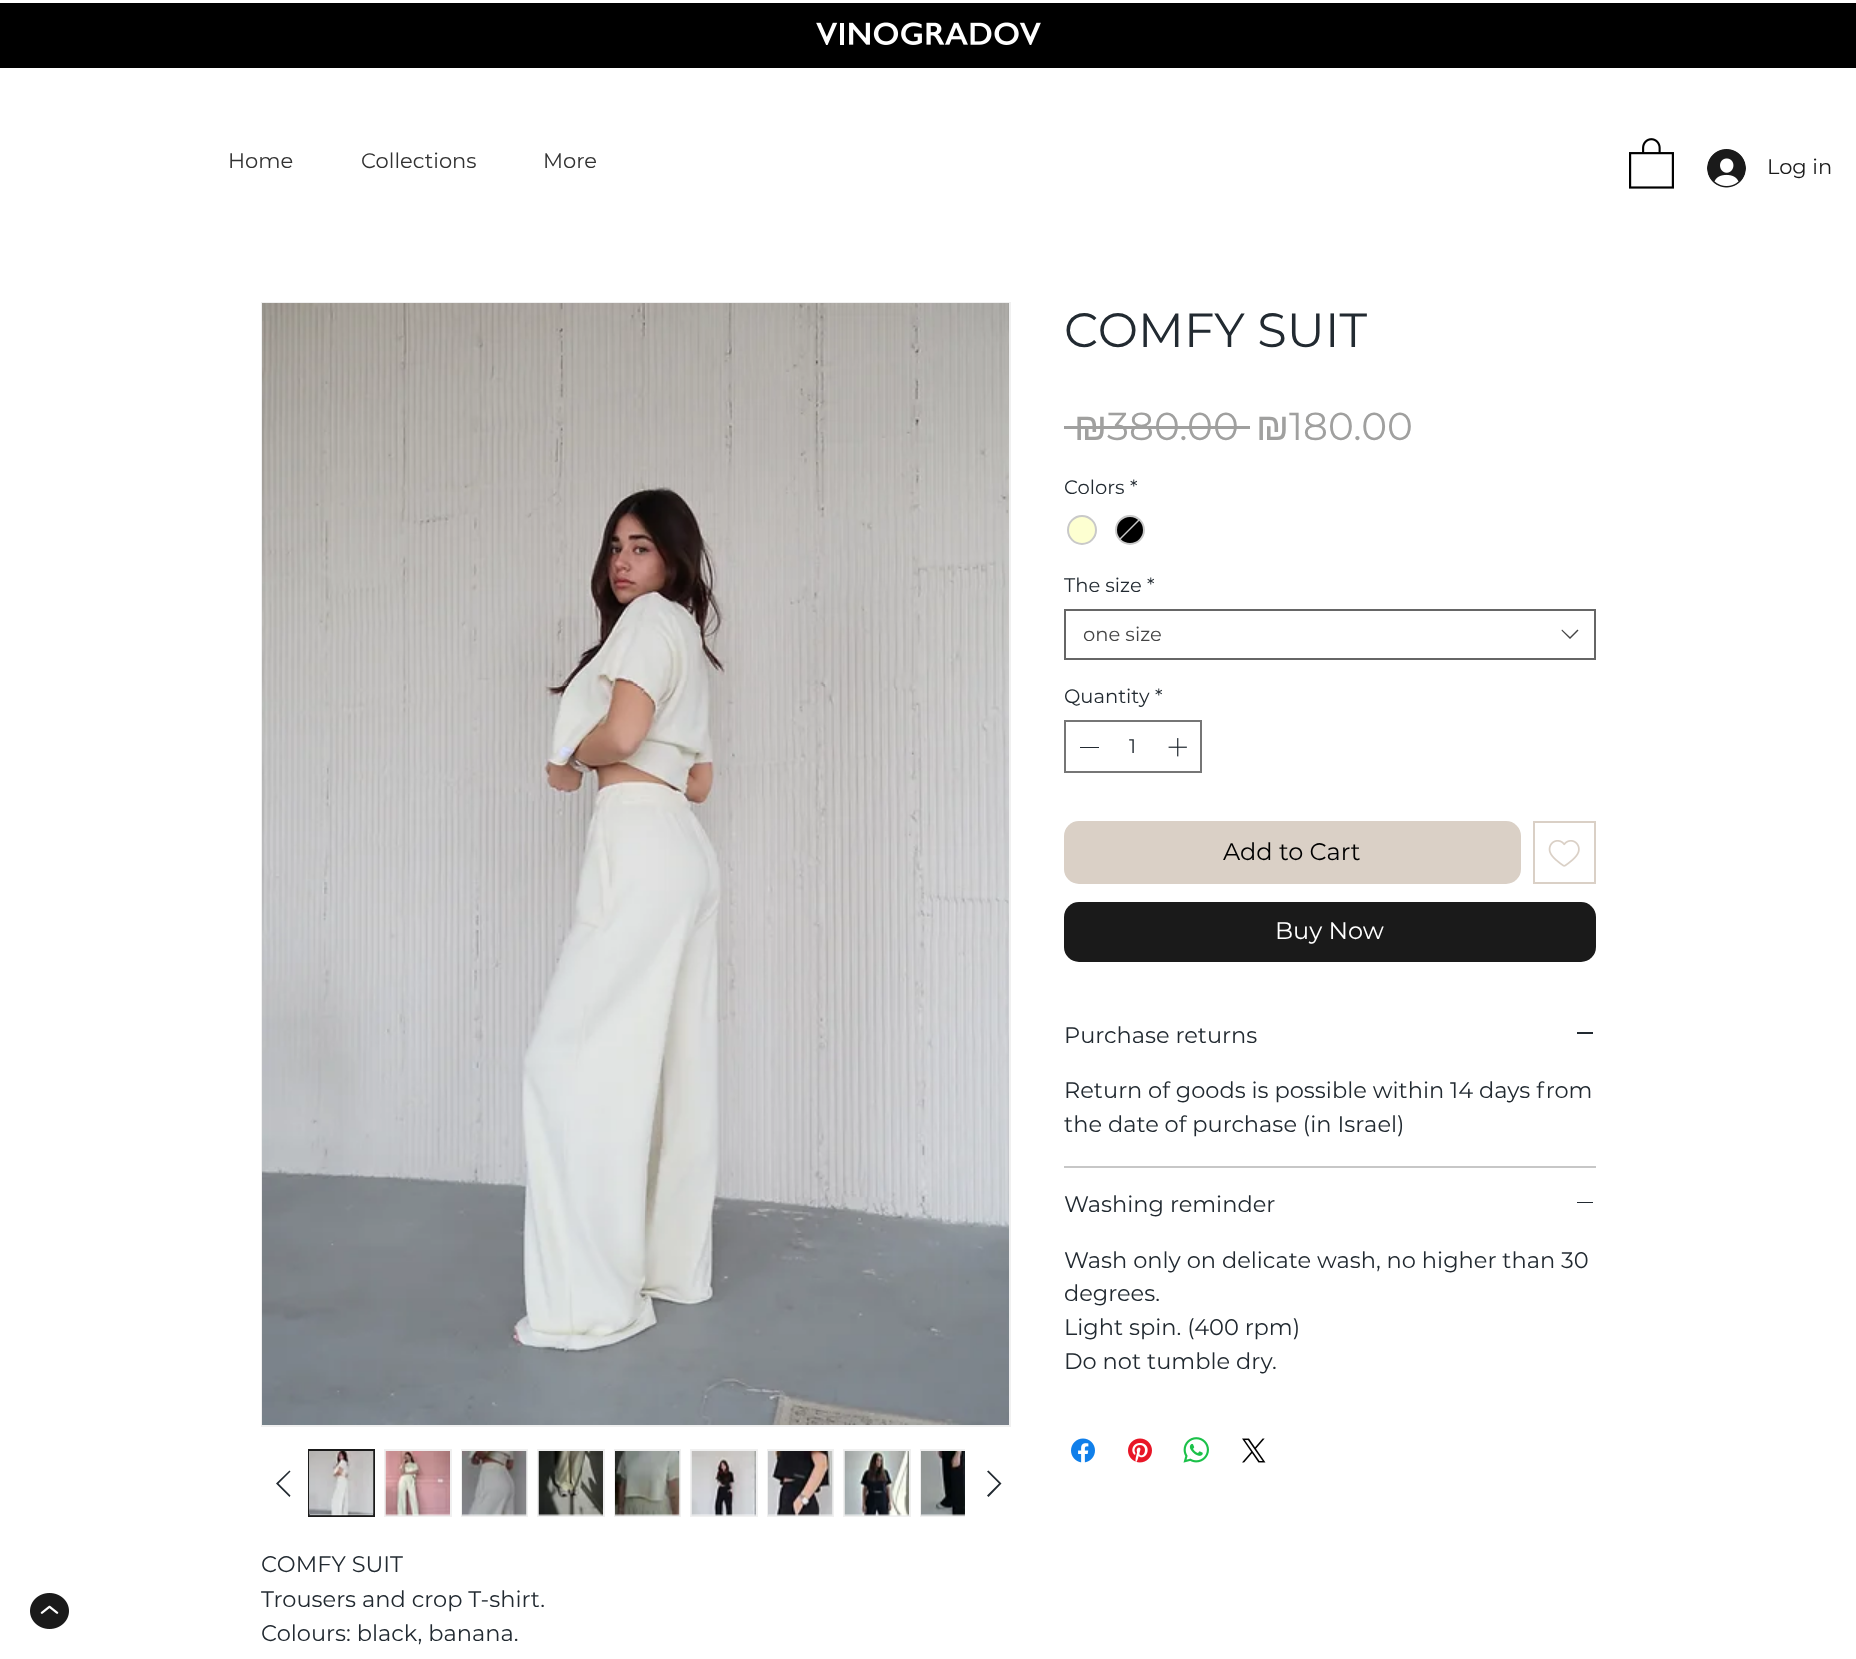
<svg xmlns="http://www.w3.org/2000/svg" width="1856" height="1659" viewBox="0 0 1856 1659">
  <defs>
    <clipPath id="clip1"><rect x="302" y="1443" width="663" height="80"/></clipPath>
  </defs>
  <rect width="100%" height="100%" fill="#ffffff"/>
  <rect x="0" y="3" width="1856" height="65" fill="#000000"/>
  <image x="816" y="22" width="225" height="23" href="img1.png"/>
  <text x="228" y="168" font-family="Montserrat" font-size="21" fill="#323232">Home</text>
  <text x="361" y="168" font-family="Montserrat" font-size="21" fill="#323232">Collections</text>
  <text x="543" y="168" font-family="Montserrat" font-size="21" fill="#323232">More</text>
  <image x="1629" y="138" width="45" height="51" href="img2.png"/>
  <image x="1707" y="149" width="39" height="39" href="img3.png"/>
  <text x="1767" y="174" font-family="Montserrat" font-size="21" fill="#1a1a1a">Log in</text>
  <image x="30" y="1593" width="39" height="36" href="img4.png"/>
  <text x="1064" y="347" font-family="Montserrat" font-size="48" fill="#222a31">COMFY SUIT</text>
  <text x="1074" y="440" font-family="Liberation Sans" font-size="39" fill="#a0a09f">₪</text>
  <rect x="1064" y="426" width="186" height="3" fill="#a0a09f"/>
  <text x="1107" y="440" font-family="Montserrat" font-size="39" fill="#a0a09f">380.00</text>
  <text x="1256" y="440" font-family="Liberation Sans" font-size="39" fill="#a0a09f">₪</text>
  <text x="1289" y="440" font-family="Montserrat" font-size="39" fill="#a0a09f">180.00</text>
  <text x="1064" y="494" font-family="Montserrat" font-size="19.5" fill="#222a31">Colors</text>
  <text x="1130" y="494" font-family="Montserrat" font-size="19.5" fill="#222a31">*</text>
  <circle cx="1082" cy="530" r="14" fill="#fdffd1" stroke="#c9c9c9" stroke-width="2"/>
  <circle cx="1130" cy="530" r="14" fill="#000000" stroke="#c9c9c9" stroke-width="2"/>
  <path d="M1139.5 520.5L1120.5 539.5L1119.5 538.5L1138.5 519.5Z" fill="#c9c9c9"/>
  <text x="1064" y="592" font-family="Montserrat" font-size="19.5" fill="#222a31">The size</text>
  <text x="1147" y="592" font-family="Montserrat" font-size="19.5" fill="#222a31">*</text>
  <rect x="1065" y="610" width="530" height="49" fill="none" stroke="#666666" stroke-width="2"/>
  <text x="1083" y="641" font-family="Montserrat" font-size="19.5" fill="#444444">one size</text>
  <path d="M1577.5 629.5L1578.5 630.5L1570 639L1561.5 630.5L1562 629.5L1570 637Z" fill="#444444" fill-rule="evenodd"/>
  <text x="1064" y="703" font-family="Montserrat" font-size="19.5" fill="#222a31">Quantity</text>
  <text x="1155" y="703" font-family="Montserrat" font-size="19.5" fill="#222a31">*</text>
  <rect x="1065" y="721" width="136" height="51" fill="none" stroke="#767676" stroke-width="2"/>
  <rect x="1080" y="747" width="19" height="1" fill="#222a31"/>
  <text x="1129" y="753" font-family="Montserrat" font-size="19.5" fill="#222a31">1</text>
  <image x="1168" y="738" width="19" height="19" href="img5.png"/>
  <rect x="1064" y="821" width="457" height="63" rx="15" fill="#dad0c6"/>
  <text x="1223" y="860" font-family="Montserrat" font-size="24" fill="#000000">Add to Cart</text>
  <rect x="1534" y="822" width="61" height="61" fill="none" stroke="#dad0c6" stroke-width="2"/>
  <image x="1548" y="840" width="32" height="27" href="img6.png"/>
  <rect x="1064" y="902" width="532" height="60" rx="15" fill="#1a1a1a"/>
  <text x="1275" y="939" font-family="Montserrat" font-size="24" fill="#ffffff">Buy Now</text>
  <rect x="1064" y="1166" width="532" height="2" fill="#c7c7c7"/>
  <text x="1064" y="1043" font-family="Montserrat" font-size="22.5" fill="#222a31">Purchase returns</text>
  <rect x="1577" y="1032" width="16" height="2" fill="#222a31"/>
  <text x="1064" y="1098" font-family="Montserrat" font-size="22.5" fill="#222a31">Return of goods is possible within 14 days from</text>
  <text x="1064" y="1132" font-family="Montserrat" font-size="22.5" fill="#222a31">the date of purchase (in Israel)</text>
  <text x="1064" y="1212" font-family="Montserrat" font-size="22.5" fill="#222a31">Washing reminder</text>
  <rect x="1577" y="1202" width="16" height="1" fill="#222a31"/>
  <text x="1064" y="1268" font-family="Montserrat" font-size="22.5" fill="#222a31">Wash only on delicate wash, no higher than 30</text>
  <text x="1064" y="1301" font-family="Montserrat" font-size="22.5" fill="#222a31">degrees.</text>
  <text x="1064" y="1335" font-family="Montserrat" font-size="22.5" fill="#222a31">Light spin. (400 rpm)</text>
  <text x="1064" y="1369" font-family="Montserrat" font-size="22.5" fill="#222a31">Do not tumble dry.</text>
  <image x="1071" y="1438" width="24" height="25" href="img7.png"/>
  <image x="1128" y="1438" width="24" height="25" href="img8.png"/>
  <image x="1183" y="1437" width="26" height="26" href="img9.png"/>
  <image x="1242" y="1438" width="24" height="25" href="img10.png"/>
  <rect x="262" y="303" width="748" height="1123" fill="none" stroke="#f0f0f0" stroke-width="2"/>
  <image x="262" y="303" width="747" height="1122" href="img11.png"/>
  <path d="M289.5 1470.5L290.5 1471.5L278.5 1483.5L290.5 1495.5L289.5 1497L276 1483.5Z" fill="#222a31" fill-rule="evenodd"/>
  <rect x="309" y="1450" width="65" height="66" fill="none" stroke="#1a1a1a" stroke-width="2"/>
  <image x="309" y="1451" width="65" height="65" href="img12.png"/>
  <rect x="385" y="1450" width="66" height="66" fill="none" stroke="#f0f0f0" stroke-width="2"/>
  <image x="385" y="1451" width="65" height="65" href="img13.png"/>
  <rect x="462" y="1450" width="65" height="66" fill="none" stroke="#f0f0f0" stroke-width="2"/>
  <image x="462" y="1451" width="65" height="65" href="img14.png"/>
  <rect x="538" y="1450" width="66" height="66" fill="none" stroke="#f0f0f0" stroke-width="2"/>
  <image x="538" y="1451" width="65" height="65" href="img15.png"/>
  <rect x="615" y="1450" width="65" height="66" fill="none" stroke="#f0f0f0" stroke-width="2"/>
  <image x="615" y="1451" width="65" height="65" href="img16.png"/>
  <rect x="691" y="1450" width="66" height="66" fill="none" stroke="#f0f0f0" stroke-width="2"/>
  <image x="691" y="1451" width="65" height="65" href="img17.png"/>
  <rect x="768" y="1450" width="65" height="66" fill="none" stroke="#f0f0f0" stroke-width="2"/>
  <image x="768" y="1451" width="65" height="65" href="img18.png"/>
  <rect x="844" y="1450" width="66" height="66" fill="none" stroke="#f0f0f0" stroke-width="2"/>
  <image x="844" y="1451" width="65" height="65" href="img19.png"/>
  <g clip-path="url(#clip1)">
    <rect x="921" y="1450" width="65" height="66" fill="none" stroke="#f0f0f0" stroke-width="2"/>
  </g>
  <image x="921" y="1451" width="44" height="65" href="img20.png"/>
  <path d="M988.5 1470.5L1001.5 1483.5L988.5 1497L987 1495.5L999 1483.5L987 1471.5Z" fill="#222a31" fill-rule="evenodd"/>
  <text x="261" y="1572" font-family="Montserrat" font-size="22.5" fill="#222a31">COMFY SUIT</text>
  <text x="261" y="1607" font-family="Montserrat" font-size="22.5" fill="#222a31">Trousers and crop T-shirt.</text>
  <text x="261" y="1641" font-family="Montserrat" font-size="22.5" fill="#222a31">Colours: black, banana.</text>
</svg>
